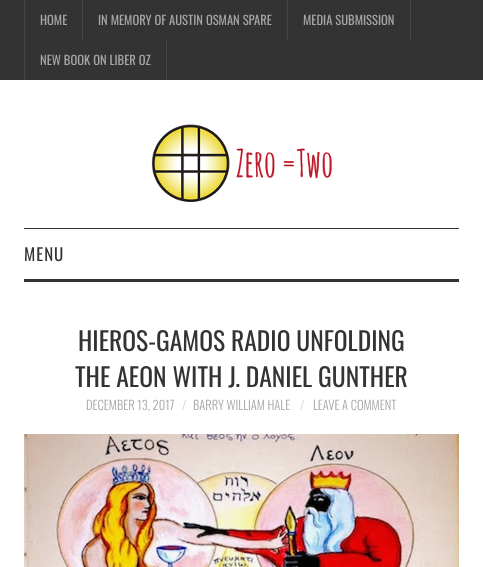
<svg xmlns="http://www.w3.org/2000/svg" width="483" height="567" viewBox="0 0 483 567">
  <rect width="100%" height="100%" fill="#ffffff"/>
  <rect x="0" y="0" width="483" height="80" fill="#333333"/>
  <path d="M24.5 0V80" fill="none" stroke="#565656" stroke-dasharray="1 1"/>
  <path d="M82.5 0V40" fill="none" stroke="#565656" stroke-dasharray="1 1"/>
  <text x="40" y="25" font-family="Oswald" font-size="12.6" fill="#a6a6a6">HOME</text>
  <path d="M287.5 0V40" fill="none" stroke="#565656" stroke-dasharray="1 1"/>
  <text x="98" y="25" font-family="Oswald" font-size="12.6" fill="#a6a6a6">IN MEMORY OF AUSTIN OSMAN SPARE</text>
  <path d="M410.5 0V40" fill="none" stroke="#565656" stroke-dasharray="1 1"/>
  <text x="303" y="25" font-family="Oswald" font-size="12.6" fill="#a6a6a6">MEDIA SUBMISSION</text>
  <path d="M166.5 40V80" fill="none" stroke="#565656" stroke-dasharray="1 1"/>
  <text x="40" y="65" font-family="Oswald" font-size="12.6" fill="#a6a6a6">NEW BOOK ON LIBER OZ</text>
  <image x="151" y="124" width="181" height="78" href="img1.png"/>
  <rect x="24" y="228" width="435" height="1" fill="#333333"/>
  <rect x="24" y="279" width="435" height="3" fill="#333333"/>
  <text x="24" y="261" font-family="Oswald" font-size="17" letter-spacing="1" fill="#333333">MENU</text>
  <text x="78" y="351" font-family="Oswald" font-size="25.6" fill="#333333">HIEROS-GAMOS RADIO UNFOLDING</text>
  <text x="75" y="387" font-family="Oswald" font-size="25.6" fill="#333333">THE AEON WITH J. DANIEL GUNTHER</text>
  <text x="86" y="410" font-family="Oswald" font-size="12.6" font-weight="300" fill="#a6a6a6">DECEMBER 13, 2017</text>
  <text x="182" y="410" font-family="Oswald" font-size="12.6" font-weight="300" fill="#d6d6d6">/</text>
  <text x="193" y="410" font-family="Oswald" font-size="12.6" font-weight="300" fill="#a6a6a6">BARRY WILLIAM HALE</text>
  <text x="300" y="410" font-family="Oswald" font-size="12.6" font-weight="300" fill="#d6d6d6">/</text>
  <text x="313" y="410" font-family="Oswald" font-size="12.6" font-weight="300" fill="#a6a6a6">LEAVE A COMMENT</text>
  <image x="24" y="434" width="435" height="133" href="img2.png"/>
</svg>
